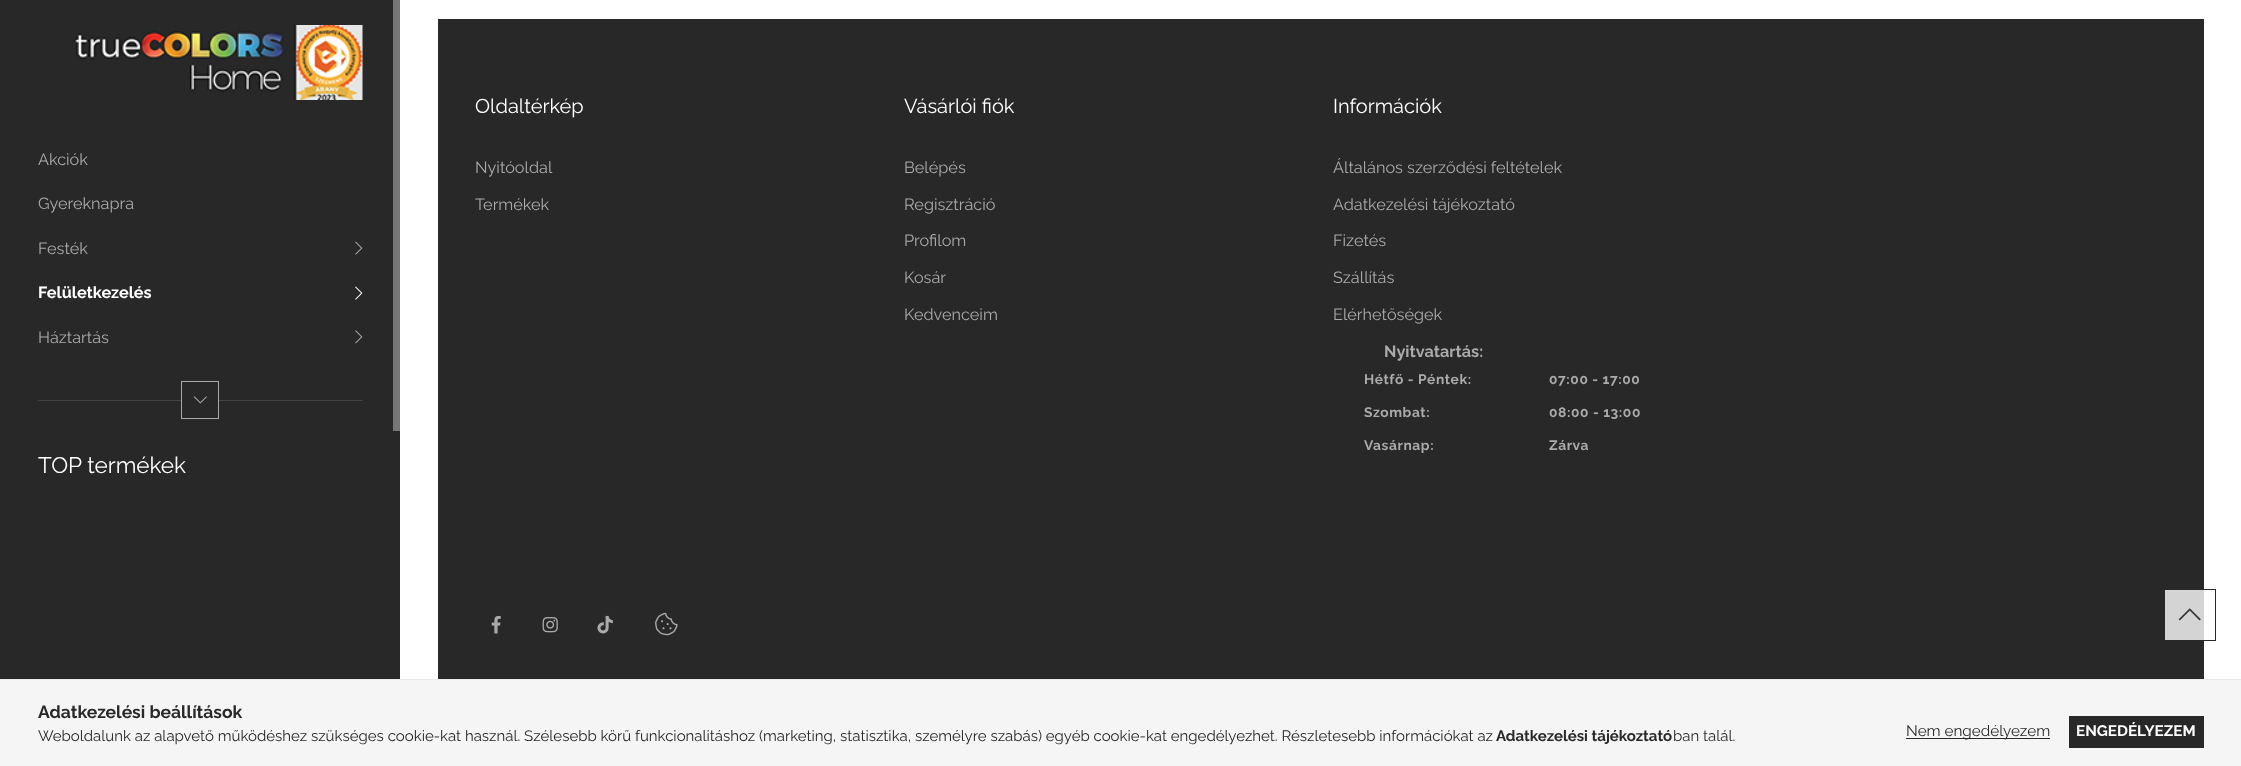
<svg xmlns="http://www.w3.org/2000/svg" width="2241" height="766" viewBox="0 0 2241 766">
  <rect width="100%" height="100%" fill="#ffffff"/>
  <rect x="0" y="0" width="400" height="679" fill="#282828"/>
  <image x="73" y="25" width="290" height="75" href="img1.png"/>
  <text x="38" y="165" font-family="Raleway" font-size="16.25" fill="#aaaaaa">Akciók</text>
  <text x="38" y="209" font-family="Raleway" font-size="16.25" fill="#aaaaaa">Gyereknapra</text>
  <text x="38" y="254" font-family="Raleway" font-size="16.25" fill="#aaaaaa">Festék</text>
  <image x="355" y="241" width="8" height="14" href="img2.png"/>
  <text x="38" y="298" font-family="Raleway" font-size="16.25" font-weight="bold" fill="#ffffff">Felületkezelés</text>
  <image x="355" y="286" width="8" height="14" href="img3.png"/>
  <text x="38" y="343" font-family="Raleway" font-size="16.25" fill="#aaaaaa">Háztartás</text>
  <image x="355" y="330" width="8" height="14" href="img4.png"/>
  <rect x="38" y="400" width="325" height="1" fill="#424242"/>
  <rect x="182" y="400" width="36" height="1" fill="#282828"/>
  <rect x="181.5" y="381.5" width="37" height="37" fill="none" stroke="#aaaaaa"/>
  <image x="193" y="396" width="14" height="8" href="img5.png"/>
  <text x="38" y="473" font-family="Raleway" font-size="22.5" fill="#ffffff">TOP termékek</text>
  <rect x="393" y="0" width="7" height="431" fill="#767676"/>
  <rect x="438" y="19" width="1766" height="660" fill="#282828"/>
  <rect x="2165" y="590" width="39" height="50" fill="#d4d4d4"/>
  <text x="475" y="113" font-family="Raleway" font-size="20" fill="#ffffff">Oldaltérkép</text>
  <text x="475" y="173" font-family="Raleway" font-size="16.25" fill="#aaaaaa">Nyitóoldal</text>
  <text x="475" y="210" font-family="Raleway" font-size="16.25" fill="#aaaaaa">Termékek</text>
  <text x="904" y="113" font-family="Raleway" font-size="20" fill="#ffffff">Vásárlói fiók</text>
  <text x="904" y="173" font-family="Raleway" font-size="16.25" fill="#aaaaaa">Belépés</text>
  <text x="904" y="210" font-family="Raleway" font-size="16.25" fill="#aaaaaa">Regisztráció</text>
  <text x="904" y="246" font-family="Raleway" font-size="16.25" fill="#aaaaaa">Profilom</text>
  <text x="904" y="283" font-family="Raleway" font-size="16.25" fill="#aaaaaa">Kosár</text>
  <text x="904" y="320" font-family="Raleway" font-size="16.25" fill="#aaaaaa">Kedvenceim</text>
  <text x="1333" y="113" font-family="Raleway" font-size="20" fill="#ffffff">Információk</text>
  <text x="1333" y="173" font-family="Raleway" font-size="16.25" fill="#aaaaaa">Általános szerződési feltételek</text>
  <text x="1333" y="210" font-family="Raleway" font-size="16.25" fill="#aaaaaa">Adatkezelési tájékoztató</text>
  <text x="1333" y="246" font-family="Raleway" font-size="16.25" fill="#aaaaaa">Fizetés</text>
  <text x="1333" y="283" font-family="Raleway" font-size="16.25" fill="#aaaaaa">Szállítás</text>
  <text x="1333" y="320" font-family="Raleway" font-size="16.25" fill="#aaaaaa">Elérhetőségek</text>
  <text x="1384" y="357" font-family="Raleway" font-size="16.25" font-weight="bold" fill="#aaaaaa">Nyitvatartás:</text>
  <text x="1364" y="384" font-family="Raleway" font-size="13.75" font-weight="bold" letter-spacing="0.6" fill="#aaaaaa">Hétfő - Péntek:</text>
  <text x="1549" y="384" font-family="Raleway" font-size="13.75" font-weight="bold" letter-spacing="0.6" fill="#aaaaaa">07:00 - 17:00</text>
  <text x="1364" y="417" font-family="Raleway" font-size="13.75" font-weight="bold" letter-spacing="0.6" fill="#aaaaaa">Szombat:</text>
  <text x="1549" y="417" font-family="Raleway" font-size="13.75" font-weight="bold" letter-spacing="0.6" fill="#aaaaaa">08:00 - 13:00</text>
  <text x="1364" y="450" font-family="Raleway" font-size="13.75" font-weight="bold" letter-spacing="0.6" fill="#aaaaaa">Vasárnap:</text>
  <text x="1549" y="450" font-family="Raleway" font-size="13.75" font-weight="bold" letter-spacing="0.6" fill="#aaaaaa">Zárva</text>
  <image x="491" y="615" width="10" height="19" href="img6.png"/>
  <image x="542" y="617" width="16" height="16" href="img7.png"/>
  <image x="597" y="615" width="16" height="19" href="img8.png"/>
  <image x="655" y="612" width="23" height="24" href="img9.png"/>
  <rect x="2164.5" y="589.5" width="51" height="51" fill="none" stroke="#282828"/>
  <image x="2178" y="608" width="23" height="13" href="img10.png"/>
  <rect x="0" y="680" width="2241" height="86" fill="#f5f5f5"/>
  <rect x="0" y="679" width="2241" height="1" fill="#eaeaea"/>
  <text x="38" y="718" font-family="Raleway" font-size="17.5" font-weight="bold" fill="#282828">Adatkezelési beállítások</text>
  <text x="38" y="741" font-family="Raleway" font-size="15" fill="#282828">Weboldalunk az alapvető működéshez szükséges cookie-kat használ. Szélesebb körű funkcionalitáshoz (marketing, statisztika, személyre szabás) egyéb cookie-kat engedélyezhet. Részletesebb információkat az</text>
  <text x="1496" y="741" font-family="Raleway" font-size="15" font-weight="bold" fill="#282828">Adatkezelési tájékoztató</text>
  <text x="1673" y="741" font-family="Raleway" font-size="15" fill="#282828">ban talál.</text>
  <rect x="1906" y="738" width="144" height="1" fill="#282828"/>
  <text x="1906" y="736" font-family="Raleway" font-size="15.25" fill="#282828">Nem engedélyezem</text>
  <rect x="2069" y="716" width="135" height="32" fill="#282828"/>
  <text x="2076" y="736" font-family="Raleway" font-size="15.25" font-weight="bold" fill="#ffffff">ENGEDÉLYEZEM</text>
</svg>
